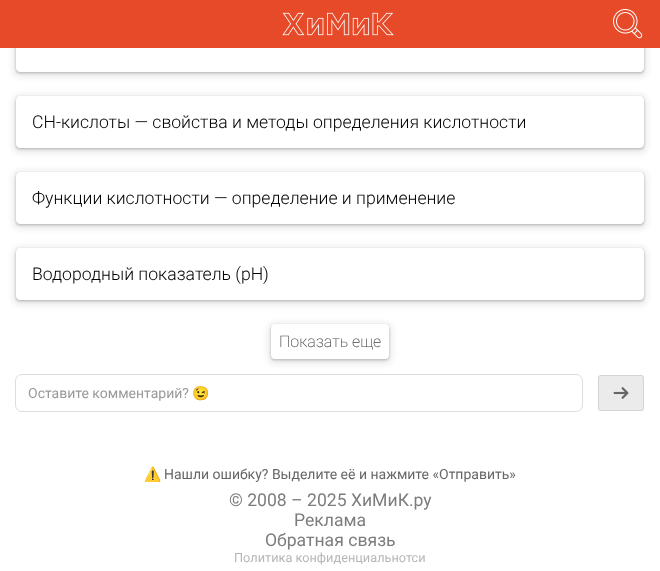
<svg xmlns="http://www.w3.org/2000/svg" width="660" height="571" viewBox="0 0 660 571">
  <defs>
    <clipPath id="clip1"><path d="M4 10H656V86H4ZM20 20H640C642 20 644 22 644 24V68C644 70 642 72 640 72H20C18 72 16 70 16 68V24C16 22 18 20 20 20Z" clip-rule="evenodd"/></clipPath>
    <filter id="blur1" x="-50%" y="-200%" width="200%" height="500%"><feGaussianBlur stdDeviation="3"/></filter>
    <clipPath id="clip2"><path d="M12 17H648V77H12ZM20 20H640C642 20 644 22 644 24V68C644 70 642 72 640 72H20C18 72 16 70 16 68V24C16 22 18 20 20 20Z" clip-rule="evenodd"/></clipPath>
    <filter id="blur2" x="-50%" y="-200%" width="200%" height="500%"><feGaussianBlur stdDeviation="1"/></filter>
    <clipPath id="clip3"><path d="M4 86H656V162H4ZM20 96H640C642 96 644 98 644 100V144C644 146 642 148 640 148H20C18 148 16 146 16 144V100C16 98 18 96 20 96Z" clip-rule="evenodd"/></clipPath>
    <clipPath id="clip4"><path d="M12 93H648V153H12ZM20 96H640C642 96 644 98 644 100V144C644 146 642 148 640 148H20C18 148 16 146 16 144V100C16 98 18 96 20 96Z" clip-rule="evenodd"/></clipPath>
    <clipPath id="clip5"><path d="M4 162H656V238H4ZM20 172H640C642 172 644 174 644 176V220C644 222 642 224 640 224H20C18 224 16 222 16 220V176C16 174 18 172 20 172Z" clip-rule="evenodd"/></clipPath>
    <clipPath id="clip6"><path d="M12 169H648V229H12ZM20 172H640C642 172 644 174 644 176V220C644 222 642 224 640 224H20C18 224 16 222 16 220V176C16 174 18 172 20 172Z" clip-rule="evenodd"/></clipPath>
    <clipPath id="clip7"><path d="M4 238H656V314H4ZM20 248H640C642 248 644 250 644 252V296C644 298 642 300 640 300H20C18 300 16 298 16 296V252C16 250 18 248 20 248Z" clip-rule="evenodd"/></clipPath>
    <clipPath id="clip8"><path d="M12 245H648V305H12ZM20 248H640C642 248 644 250 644 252V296C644 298 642 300 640 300H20C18 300 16 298 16 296V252C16 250 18 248 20 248Z" clip-rule="evenodd"/></clipPath>
  </defs>
  <rect width="100%" height="100%" fill="#ffffff"/>
  <g clip-path="url(#clip1)">
    <rect x="14" y="20" width="632" height="56" rx="6" fill="#3c4043" fill-opacity="0.15" filter="url(#blur1)"/>
  </g>
  <g clip-path="url(#clip2)">
    <rect x="16" y="21" width="628" height="52" rx="4" fill="#3c4043" fill-opacity="0.3" filter="url(#blur2)"/>
  </g>
  <rect x="0" y="0" width="660" height="48" fill="#e74a29"/>
  <image x="282" y="12" width="112" height="24" href="img1.png"/>
  <image x="613" y="9" width="30" height="30" href="img2.png"/>
  <g clip-path="url(#clip3)">
    <rect x="14" y="96" width="632" height="56" rx="6" fill="#3c4043" fill-opacity="0.15" filter="url(#blur1)"/>
  </g>
  <g clip-path="url(#clip4)">
    <rect x="16" y="97" width="628" height="52" rx="4" fill="#3c4043" fill-opacity="0.3" filter="url(#blur2)"/>
  </g>
  <text x="32" y="128" font-family="Roboto" font-size="17.6" font-weight="300" fill="#000000">СН-кислоты — свойства и методы определения кислотности</text>
  <g clip-path="url(#clip5)">
    <rect x="14" y="172" width="632" height="56" rx="6" fill="#3c4043" fill-opacity="0.15" filter="url(#blur1)"/>
  </g>
  <g clip-path="url(#clip6)">
    <rect x="16" y="173" width="628" height="52" rx="4" fill="#3c4043" fill-opacity="0.3" filter="url(#blur2)"/>
  </g>
  <text x="32" y="204" font-family="Roboto" font-size="17.6" font-weight="300" fill="#000000">Функции кислотности — определение и применение</text>
  <g clip-path="url(#clip7)">
    <rect x="14" y="248" width="632" height="56" rx="6" fill="#3c4043" fill-opacity="0.15" filter="url(#blur1)"/>
  </g>
  <g clip-path="url(#clip8)">
    <rect x="16" y="249" width="628" height="52" rx="4" fill="#3c4043" fill-opacity="0.3" filter="url(#blur2)"/>
  </g>
  <text x="32" y="280" font-family="Roboto" font-size="17.6" font-weight="300" fill="#000000">Водородный показатель (pH)</text>
  <rect x="269" y="324" width="122" height="39" rx="6" fill="#3c4043" fill-opacity="0.15" filter="url(#blur1)"/>
  <rect x="271" y="325" width="118" height="35" rx="4" fill="#3c4043" fill-opacity="0.3" filter="url(#blur2)"/>
  <rect x="271" y="324" width="118" height="35" rx="4" fill="#ffffff"/>
  <text x="279" y="347" font-family="Roboto" font-size="16" font-weight="200" fill="#444444">Показать еще</text>
  <rect x="15.5" y="374.5" width="567" height="37" rx="6.5" fill="none" stroke="#dddddd"/>
  <text x="28" y="398" font-family="Roboto" font-size="14" fill="#999999">Оставите комментарий?</text>
  <text x="192" y="398" font-family="Noto Color Emoji" font-size="14" fill="#999999">😉</text>
  <rect x="598" y="375" width="46" height="36" rx="3" fill="#ebebeb"/>
  <image x="613" y="387" width="16" height="12" href="img3.png"/>
  <rect x="598.5" y="375.5" width="45" height="35" rx="2.5" fill="none" stroke="#d4d4d4"/>
  <text x="144" y="479" font-family="Noto Color Emoji" font-size="14" fill="#666666">⚠️</text>
  <text x="164" y="479" font-family="Roboto" font-size="14" fill="#666666">Нашли ошибку? Выделите её и нажмите «Отправить»</text>
  <text x="229" y="506" font-family="Roboto" font-size="17.6" fill="#7e7c7c">© 2008 – 2025 ХиМиК.ру</text>
  <text x="294" y="526" font-family="Roboto" font-size="17.6" fill="#7e7c7c">Реклама</text>
  <text x="265" y="546" font-family="Roboto" font-size="17.6" fill="#7e7c7c">Обратная связь</text>
  <text x="234" y="562" font-family="Roboto" font-size="12.75" fill="#b6b6b6">Политика конфиденциальнотси</text>
</svg>
